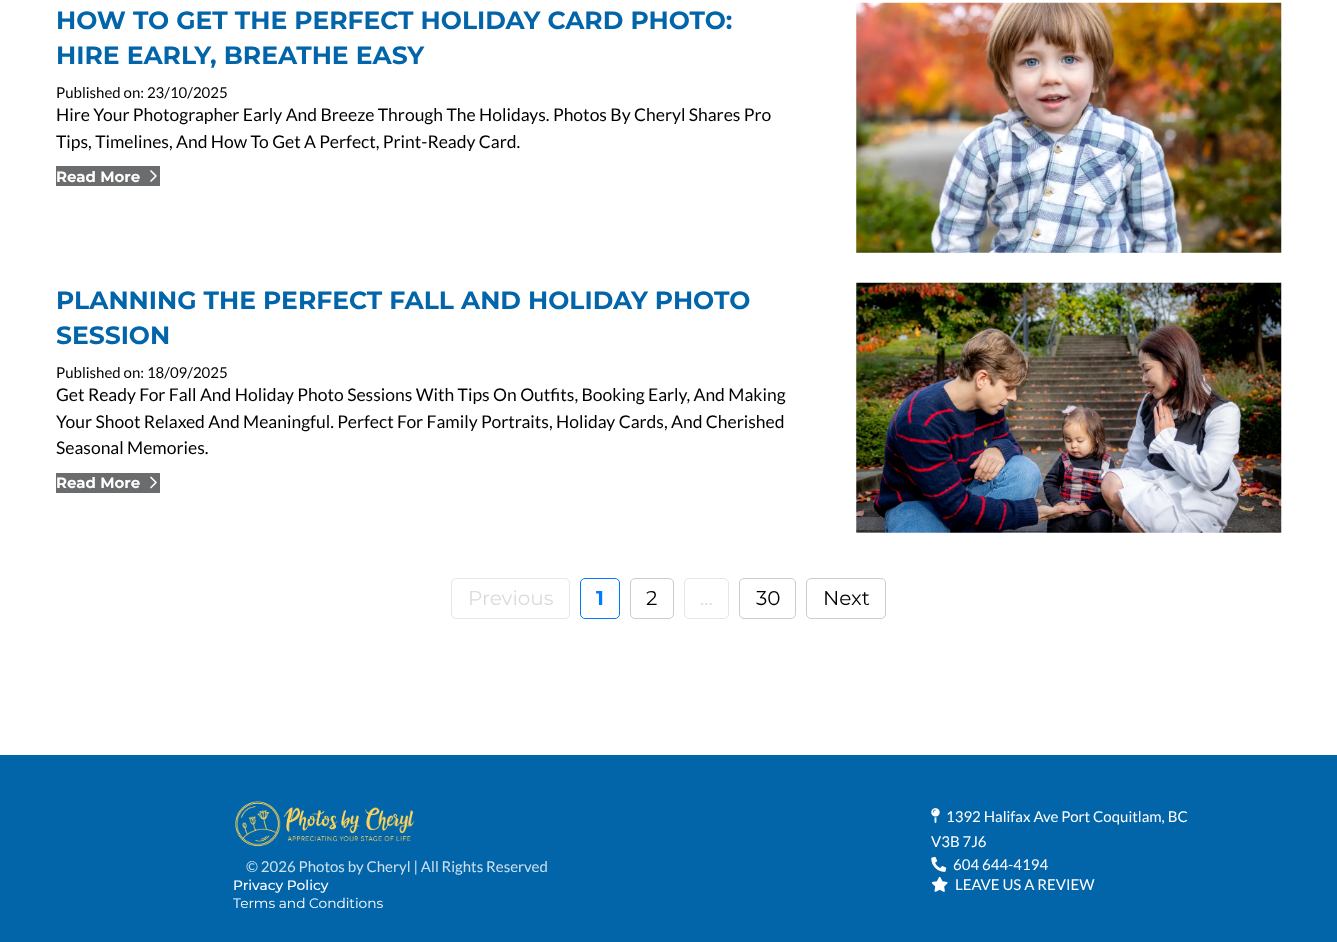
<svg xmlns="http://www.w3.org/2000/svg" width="1337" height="942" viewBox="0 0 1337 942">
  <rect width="100%" height="100%" fill="#ffffff"/>
  <text x="56" y="29" font-family="Montserrat" font-size="25" font-weight="bold" fill="#0265aa">HOW TO GET THE PERFECT HOLIDAY CARD PHOTO:</text>
  <text x="56" y="64" font-family="Montserrat" font-size="25" font-weight="bold" fill="#0265aa">HIRE EARLY, BREATHE EASY</text>
  <text x="56" y="98" font-family="Lato" font-size="15" fill="#000000">Published on: 23/10/2025</text>
  <text x="56" y="121" font-family="Lato" font-size="17.5" fill="#000000">Hire Your Photographer Early And Breeze Through The Holidays. Photos By Cheryl Shares Pro</text>
  <text x="56" y="148" font-family="Lato" font-size="17.5" fill="#000000">Tips, Timelines, And How To Get A Perfect, Print-Ready Card.</text>
  <rect x="56" y="166" width="104" height="20" fill="#6a6c6d"/>
  <text x="56" y="182" font-family="Montserrat" font-size="15" font-weight="bold" fill="#ffffff">Read More</text>
  <path d="M151 181L156 176L151 171" fill="none" stroke="#ffffff" stroke-width="1.7" stroke-linecap="round" stroke-linejoin="round"/>
  <image x="856" y="2" width="426" height="251" href="img1.png"/>
  <text x="56" y="309" font-family="Montserrat" font-size="25" font-weight="bold" fill="#0265aa">PLANNING THE PERFECT FALL AND HOLIDAY PHOTO</text>
  <text x="56" y="344" font-family="Montserrat" font-size="25" font-weight="bold" fill="#0265aa">SESSION</text>
  <text x="56" y="378" font-family="Lato" font-size="15" fill="#000000">Published on: 18/09/2025</text>
  <text x="56" y="401" font-family="Lato" font-size="17.5" fill="#000000">Get Ready For Fall And Holiday Photo Sessions With Tips On Outfits, Booking Early, And Making</text>
  <text x="56" y="428" font-family="Lato" font-size="17.5" fill="#000000">Your Shoot Relaxed And Meaningful. Perfect For Family Portraits, Holiday Cards, And Cherished</text>
  <text x="56" y="454" font-family="Lato" font-size="17.5" fill="#000000">Seasonal Memories.</text>
  <rect x="56" y="473" width="104" height="20" fill="#6a6c6d"/>
  <text x="56" y="488" font-family="Montserrat" font-size="15" font-weight="bold" fill="#ffffff">Read More</text>
  <path d="M151 487.5L156 482.5L151 477.5" fill="none" stroke="#ffffff" stroke-width="1.7" stroke-linecap="round" stroke-linejoin="round"/>
  <image x="856" y="282" width="426" height="251" href="img2.png"/>
  <rect x="451.5" y="578.5" width="118" height="40" rx="4.5" fill="none" stroke="#e6e6e6"/>
  <text x="468" y="605" font-family="Montserrat" font-size="20" fill="#dbdbdb">Previous</text>
  <rect x="580.5" y="578.5" width="39" height="40" rx="4.5" fill="none" stroke="#007bff"/>
  <text x="596" y="605" font-family="Montserrat" font-size="20" font-weight="bold" fill="#007bff">1</text>
  <rect x="630.5" y="578.5" width="43" height="40" rx="4.5" fill="none" stroke="#cccccc"/>
  <text x="646" y="605" font-family="Montserrat" font-size="20" fill="#000000">2</text>
  <rect x="684.5" y="578.5" width="44" height="40" rx="4.5" fill="none" stroke="#e6e6e6"/>
  <text x="700" y="605" font-family="Montserrat" font-size="20" fill="#dbdbdb">...</text>
  <rect x="739.5" y="578.5" width="56" height="40" rx="4.5" fill="none" stroke="#cccccc"/>
  <text x="756" y="605" font-family="Montserrat" font-size="20" fill="#000000">30</text>
  <rect x="806.5" y="578.5" width="79" height="40" rx="4.5" fill="none" stroke="#cccccc"/>
  <text x="823" y="605" font-family="Montserrat" font-size="20" fill="#000000">Next</text>
  <rect x="0" y="755" width="1337" height="187" fill="#0265aa"/>
  <image x="235" y="801" width="180" height="46" href="img3.png"/>
  <text x="246" y="872" font-family="Lato" font-size="15" fill="#cce0ee">© 2026 Photos by Cheryl | All Rights Reserved</text>
  <text x="233" y="890" font-family="Montserrat" font-size="13.75" font-weight="500" fill="#ffffff">Privacy Policy</text>
  <text x="233" y="908" font-family="Montserrat" font-size="13.75" fill="#ffffff">Terms and Conditions</text>
  <image x="931" y="808" width="9" height="16" href="img4.png"/>
  <text x="946" y="822" font-family="Lato" font-size="15" fill="#ffffff">1392 Halifax Ave Port Coquitlam, BC</text>
  <text x="931" y="847" font-family="Lato" font-size="15" fill="#ffffff">V3B 7J6</text>
  <image x="931" y="856" width="16" height="16" href="img5.png"/>
  <text x="953" y="870" font-family="Lato" font-size="15" fill="#ffffff">604 644-4194</text>
  <image x="931" y="876" width="17" height="16" href="img6.png"/>
  <text x="955" y="890" font-family="Lato" font-size="15" fill="#ffffff">LEAVE US A REVIEW</text>
</svg>
